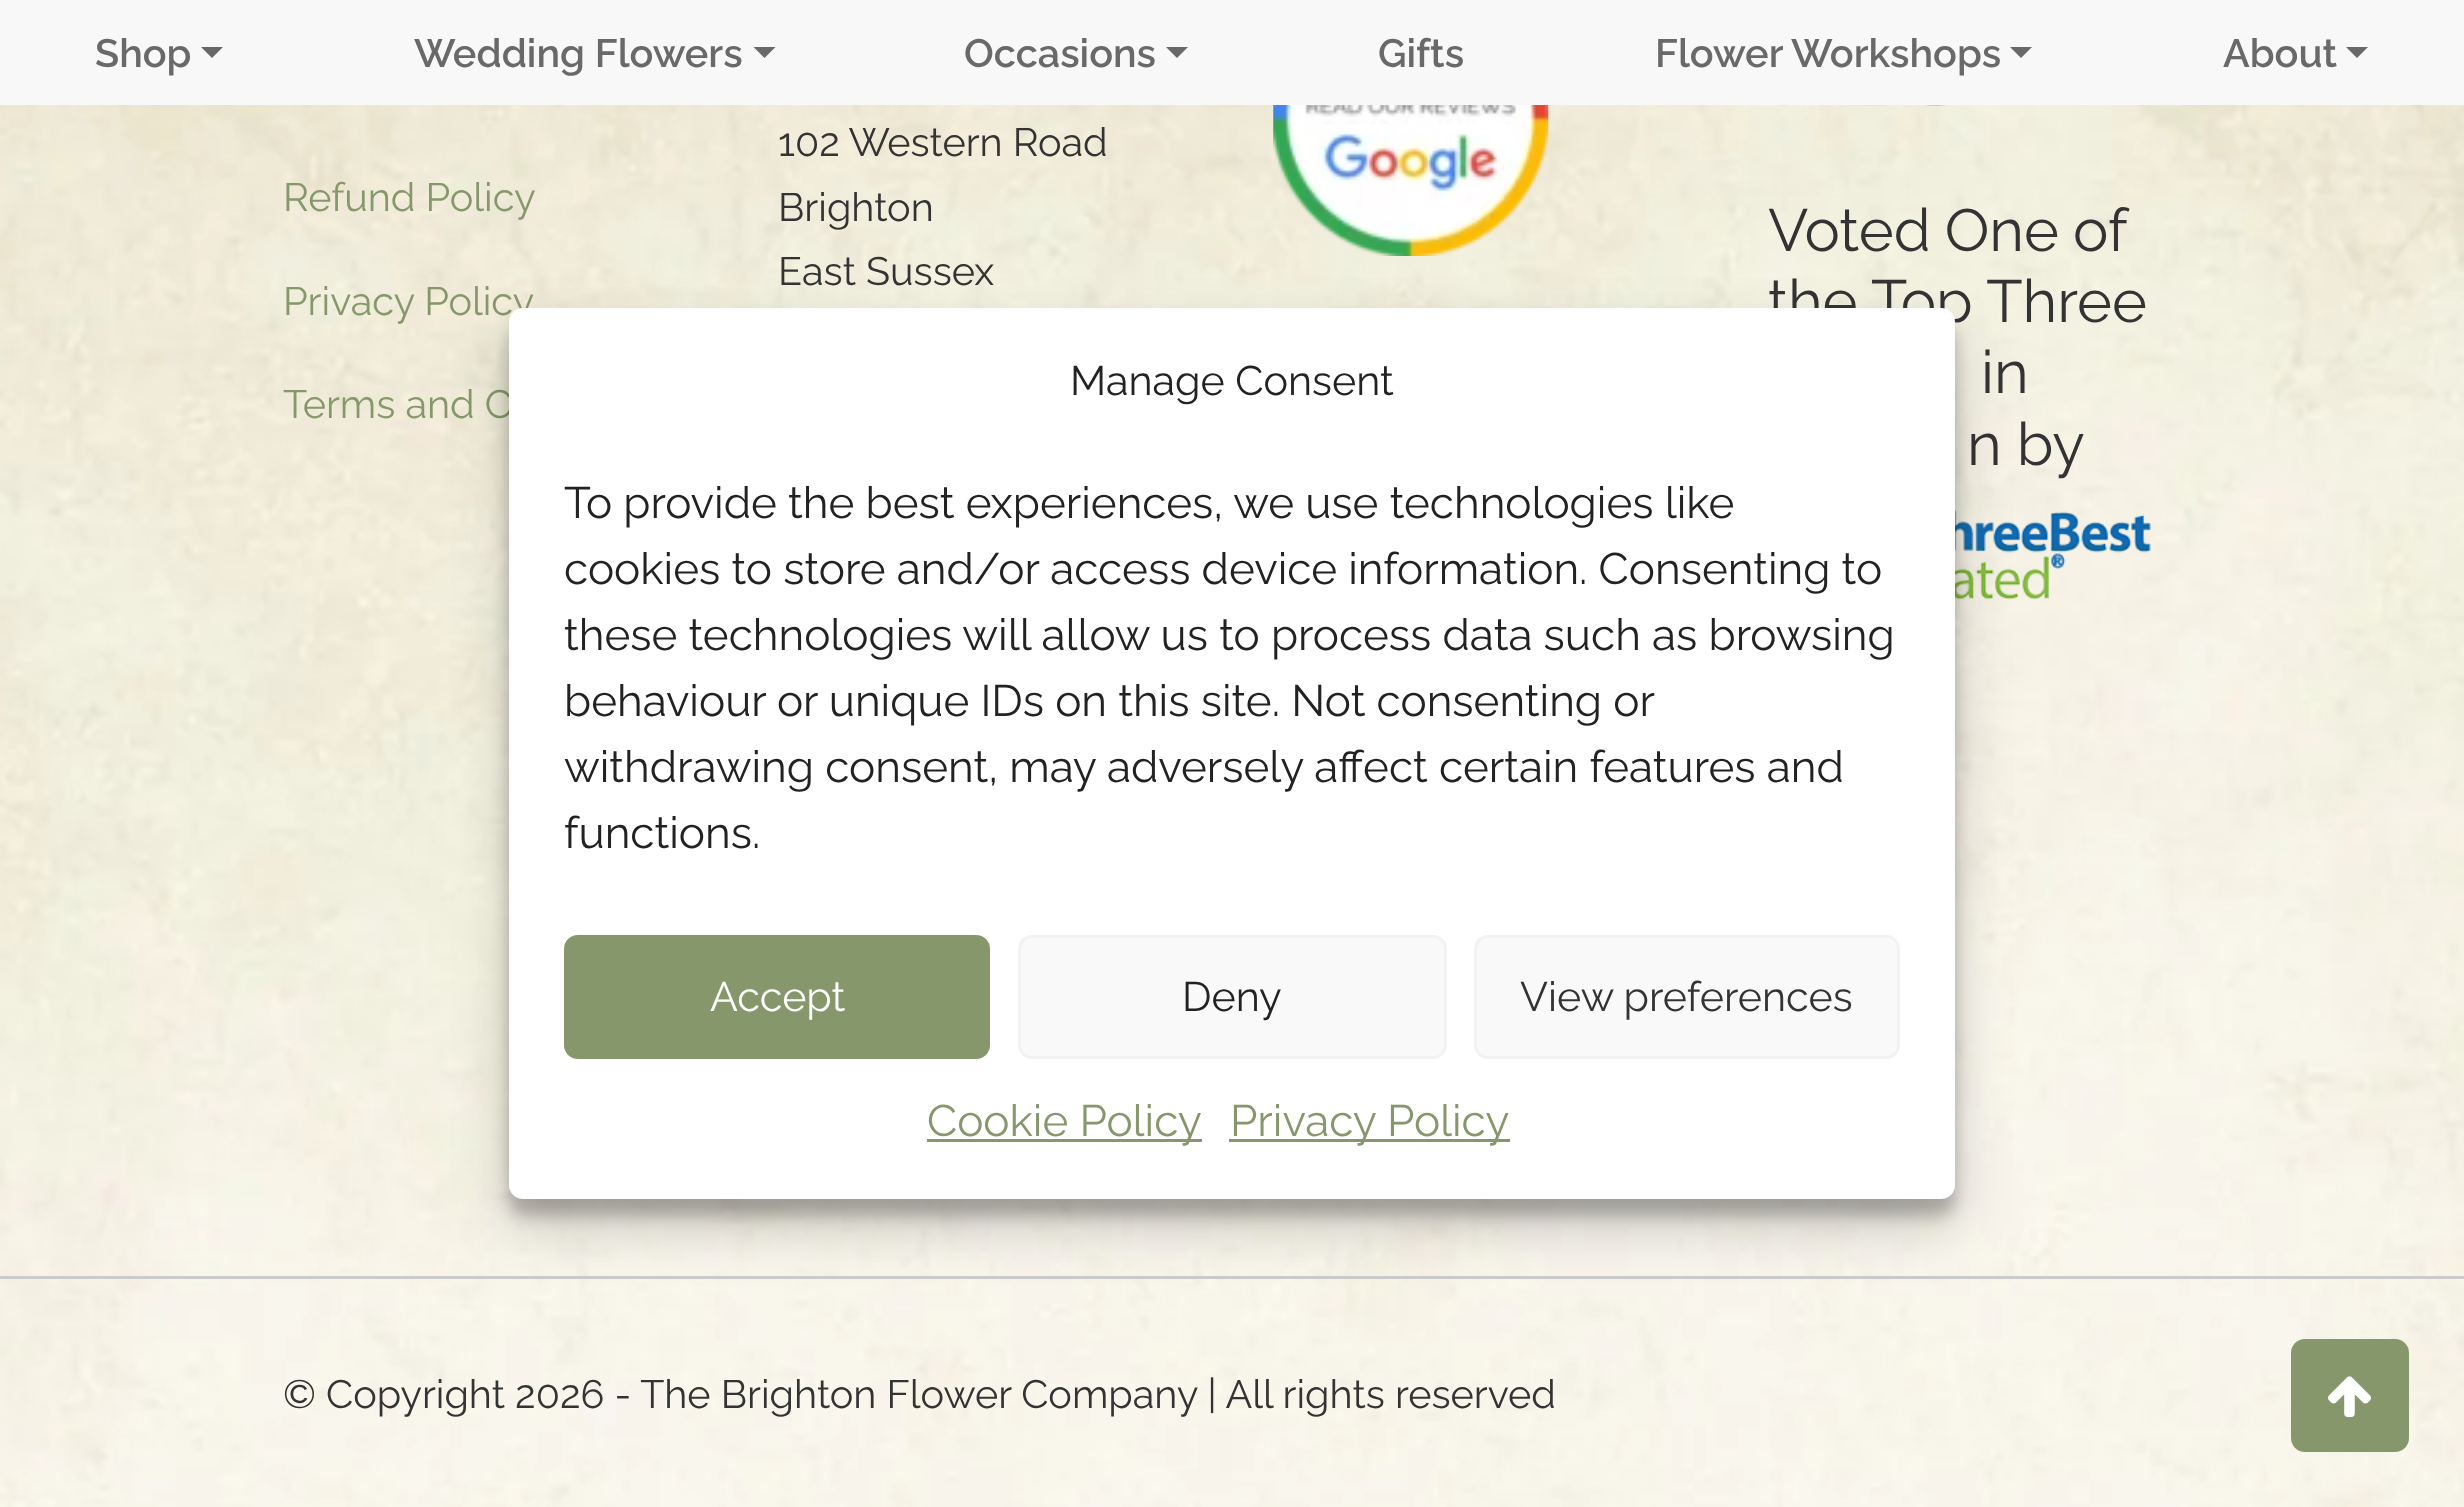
<svg xmlns="http://www.w3.org/2000/svg" width="2464" height="1507" viewBox="0 0 2464 1507">
  <defs>
    <filter id="blur1" x="-50%" y="-200%" width="200%" height="500%"><feGaussianBlur stdDeviation="8"/></filter>
    <filter id="blur2" x="-50%" y="-200%" width="200%" height="500%"><feGaussianBlur stdDeviation="27.5"/></filter>
  </defs>
  <rect width="100%" height="100%" fill="#ffffff"/>
  <rect x="0" y="0" width="2464" height="105" fill="#f8f8f8"/>
  <text x="95" y="67" font-family="'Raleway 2'" font-size="39.6" font-weight="100" fill="#696969">Shop</text>
  <path d="M201 47H223L212 58Z" fill="#696969"/>
  <text x="414" y="67" font-family="'Raleway 2'" font-size="39.6" font-weight="100" fill="#696969">Wedding Flowers</text>
  <path d="M753.5 47H775.5L764.5 58Z" fill="#696969"/>
  <text x="964" y="67" font-family="'Raleway 2'" font-size="39.6" font-weight="100" fill="#696969">Occasions</text>
  <path d="M1166 47H1188L1177 58Z" fill="#696969"/>
  <text x="1378" y="67" font-family="'Raleway 2'" font-size="39.6" font-weight="100" fill="#696969">Gifts</text>
  <text x="1655" y="67" font-family="'Raleway 2'" font-size="39.6" font-weight="100" fill="#696969">Flower Workshops</text>
  <path d="M2010 47H2032L2021 58Z" fill="#696969"/>
  <text x="2223" y="67" font-family="'Raleway 2'" font-size="39.6" font-weight="100" fill="#696969">About</text>
  <path d="M2346 47H2368L2357 58Z" fill="#696969"/>
  <image x="0" y="105" width="2464" height="1402" href="img1.png"/>
  <text x="283" y="211" font-family="Raleway" font-size="39.6" font-weight="100" fill="#86986b">Refund Policy</text>
  <text x="283" y="315" font-family="Raleway" font-size="39.6" font-weight="100" fill="#86986b">Privacy Policy</text>
  <text x="283" y="418" font-family="Raleway" font-size="39.6" font-weight="100" fill="#86986b">Terms and C</text>
  <text x="778" y="156" font-family="Raleway" font-size="39.6" font-weight="100" fill="#333333">102 Western Road</text>
  <text x="778" y="221" font-family="Raleway" font-size="39.6" font-weight="100" fill="#333333">Brighton</text>
  <text x="778" y="285" font-family="Raleway" font-size="39.6" font-weight="100" fill="#333333">East Sussex</text>
  <image x="1273" y="105" width="276" height="151" href="img2.png"/>
  <image x="1781" y="105" width="363" height="1" href="img3.png"/>
  <text x="1768" y="251" word-spacing="-1" font-family="Raleway" font-size="59.5" font-weight="100" fill="#333333">Voted One of</text>
  <text x="1768" y="322" font-family="Raleway" font-size="59.5" font-weight="100" fill="#333333">the Top Three</text>
  <text x="1981" y="393" font-family="Raleway" font-size="59.5" font-weight="100" fill="#333333">in</text>
  <text x="1967" y="465" font-family="Raleway" font-size="59.5" font-weight="100" fill="#333333">n by</text>
  <image x="1955" y="510" width="196" height="90" href="img4.png"/>
  <rect x="0" y="1276" width="2464" height="3" fill="#cbcbcb"/>
  <text x="283" y="1408" font-family="Raleway" font-size="39.6" font-weight="100" fill="#333333">© Copyright 2026 - The Brighton Flower Company | All rights reserved</text>
  <rect x="2292.5" y="1340.5" width="115" height="110" rx="12.5" fill="#86986b" stroke="#86986b" stroke-width="3"/>
  <image x="2328" y="1376" width="43" height="42" href="img5.png"/>
  <rect x="509" y="325" width="1446" height="891" rx="14" fill="#000000" fill-opacity="0.23" filter="url(#blur1)"/>
  <rect x="509" y="336" width="1446" height="891" rx="14" fill="#000000" fill-opacity="0.19" filter="url(#blur2)"/>
  <rect x="509" y="308" width="1446" height="891" rx="14" fill="#ffffff"/>
  <text x="1070" y="395" font-family="Raleway" font-size="41.25" font-weight="100" fill="#222222">Manage Consent</text>
  <text x="564" y="518" font-family="Raleway" font-size="44" font-weight="100" fill="#222222">To provide the best experiences, we use technologies like</text>
  <text x="564" y="584" font-family="Raleway" font-size="44" font-weight="100" fill="#222222">cookies to store and/or access device information. Consenting to</text>
  <text x="564" y="650" font-family="Raleway" font-size="44" font-weight="100" fill="#222222">these technologies will allow us to process data such as browsing</text>
  <text x="564" y="716" font-family="Raleway" font-size="44" font-weight="100" fill="#222222">behaviour or unique IDs on this site. Not consenting or</text>
  <text x="564" y="782" font-family="Raleway" font-size="44" font-weight="100" fill="#222222">withdrawing consent, may adversely affect certain features and</text>
  <text x="564" y="848" font-family="Raleway" font-size="44" font-weight="100" fill="#222222">functions.</text>
  <rect x="565.5" y="936.5" width="423" height="121" rx="12.5" fill="#86986b" stroke="#86986b" stroke-width="3"/>
  <text x="710" y="1011" font-family="Raleway" font-size="41.25" font-weight="100" fill="#ffffff">Accept</text>
  <rect x="1019.5" y="936.5" width="426" height="121" rx="12.5" fill="#f9f9f9" stroke="#f2f2f2" stroke-width="3"/>
  <text x="1182" y="1011" font-family="Raleway" font-size="41.25" font-weight="100" fill="#222222">Deny</text>
  <rect x="1475.5" y="936.5" width="423" height="121" rx="12.5" fill="#f9f9f9" stroke="#f2f2f2" stroke-width="3"/>
  <text x="1520" y="1011" font-family="Raleway" font-size="41.25" font-weight="100" fill="#333333">View preferences</text>
  <rect x="927" y="1139" width="275" height="3" fill="#86986b"/>
  <text x="927" y="1136" font-family="Raleway" font-size="44" font-weight="100" fill="#86986b">Cookie Policy</text>
  <rect x="1229" y="1139" width="281" height="3" fill="#86986b"/>
  <text x="1230" y="1136" font-family="Raleway" font-size="44" font-weight="100" fill="#86986b">Privacy Policy</text>
</svg>
